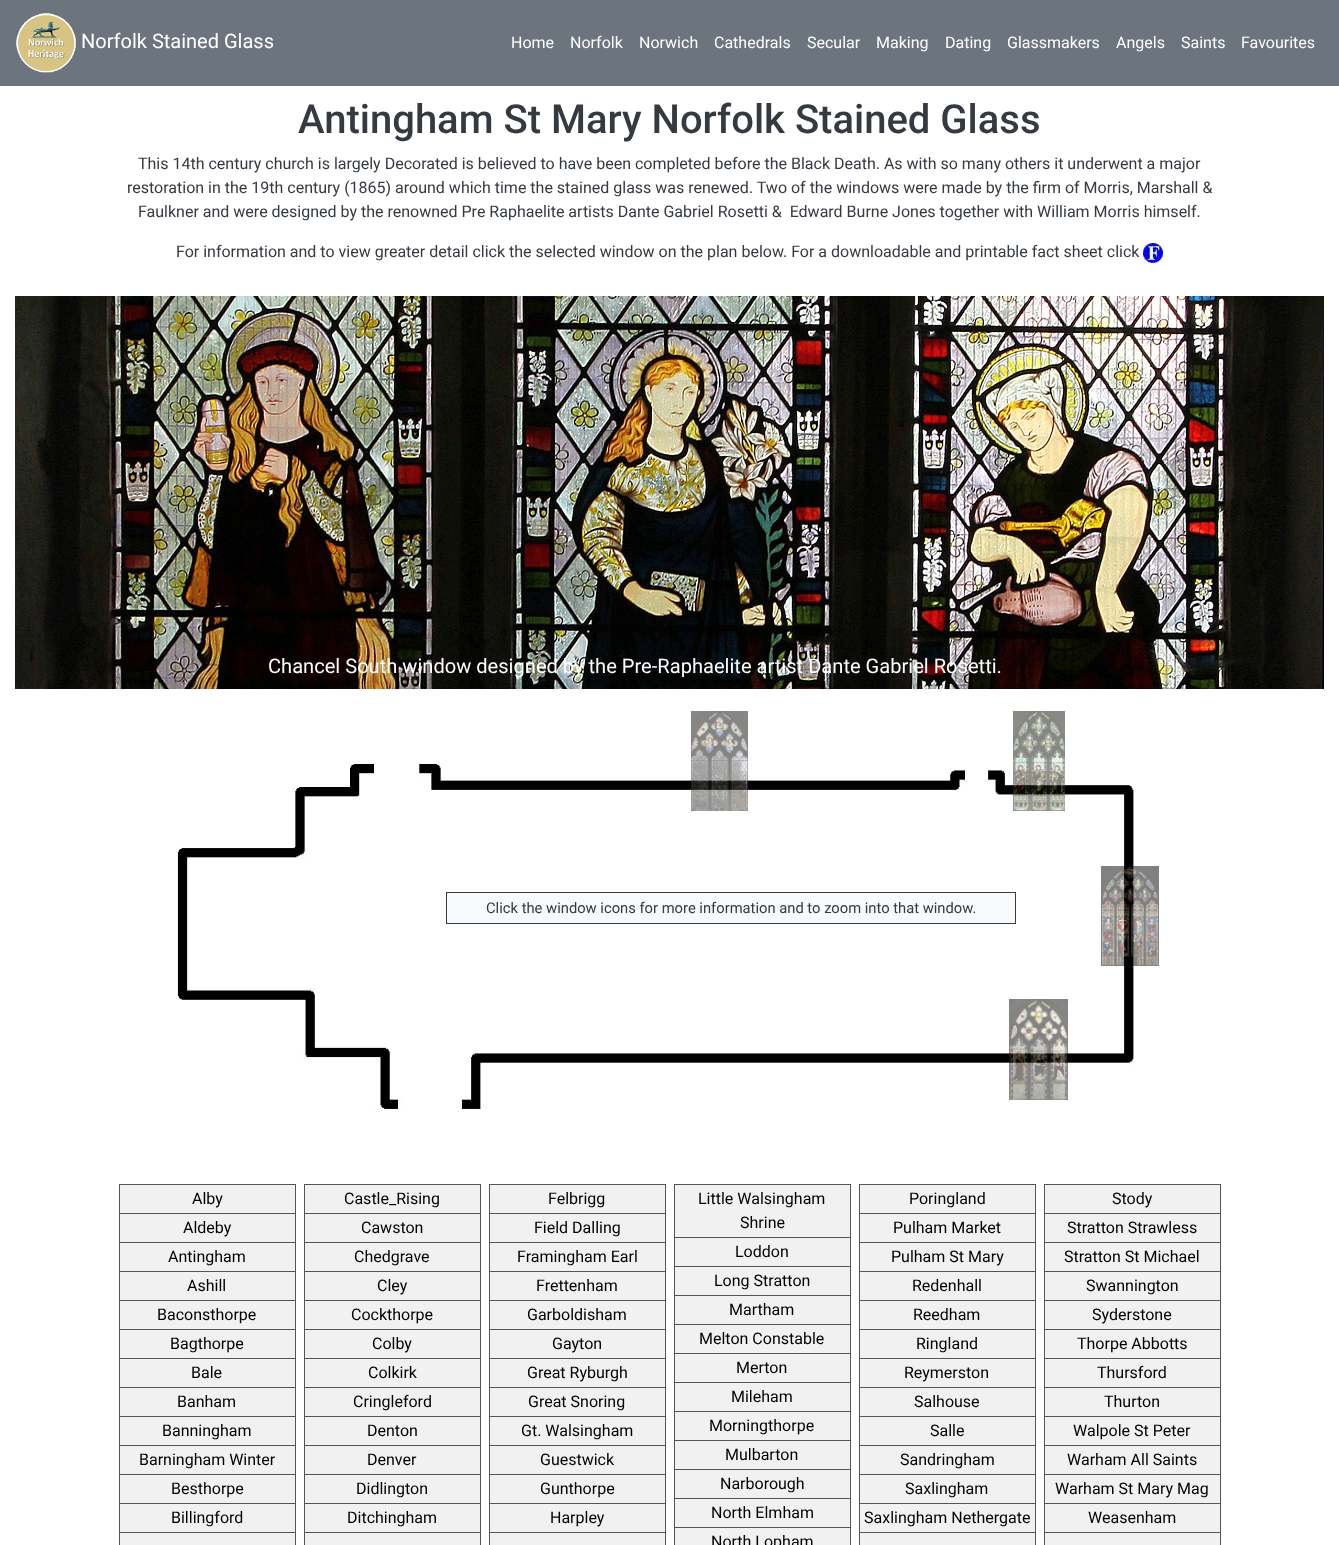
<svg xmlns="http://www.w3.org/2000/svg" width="1339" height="1545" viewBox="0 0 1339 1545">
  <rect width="100%" height="100%" fill="#ffffff"/>
  <rect x="0" y="0" width="1339" height="86" fill="#6c757d"/>
  <image x="16" y="13" width="60" height="60" href="img1.png"/>
  <text x="81" y="48" font-family="Roboto" font-size="20" fill="#ffffff">Norfolk Stained Glass</text>
  <text x="511" y="48" font-family="Roboto" font-size="16" fill="#ffffff">Home</text>
  <text x="570" y="48" font-family="Roboto" font-size="16" fill="#ffffff">Norfolk</text>
  <text x="639" y="48" font-family="Roboto" font-size="16" fill="#ffffff">Norwich</text>
  <text x="714" y="48" font-family="Roboto" font-size="16" fill="#ffffff">Cathedrals</text>
  <text x="807" y="48" font-family="Roboto" font-size="16" fill="#ffffff">Secular</text>
  <text x="876" y="48" font-family="Roboto" font-size="16" fill="#ffffff">Making</text>
  <text x="945" y="48" font-family="Roboto" font-size="16" fill="#ffffff">Dating</text>
  <text x="1007" y="48" font-family="Roboto" font-size="16" fill="#ffffff">Glassmakers</text>
  <text x="1116" y="48" font-family="Roboto" font-size="16" fill="#ffffff">Angels</text>
  <text x="1181" y="48" font-family="Roboto" font-size="16" fill="#ffffff">Saints</text>
  <text x="1241" y="48" font-family="Roboto" font-size="16" fill="#ffffff">Favourites</text>
  <text x="298" y="133" font-family="Roboto" font-size="40" font-weight="500" fill="#343a40">Antingham St Mary Norfolk Stained Glass</text>
  <text x="138" y="169" font-family="Roboto" font-size="16" fill="#343a40">This 14th century church is largely Decorated is believed to have been completed before the Black Death. As with so many others it underwent a major</text>
  <text x="127" y="193" font-family="Roboto" font-size="16" fill="#343a40">restoration in the 19th century (1865) around which time the stained glass was renewed. Two of the windows were made by the firm of Morris, Marshall &amp;</text>
  <text x="138" y="217" font-family="Roboto" font-size="16" fill="#343a40" xml:space="preserve">Faulkner and were designed by the renowned Pre Raphaelite artists Dante Gabriel Rosetti &amp;  Edward Burne Jones together with William Morris himself.</text>
  <text x="176" y="257" font-family="Roboto" font-size="16" fill="#343a40">For information and to view greater detail click the selected window on the plan below. For a downloadable and printable fact sheet click</text>
  <image x="1143" y="243" width="20" height="20" href="img2.png"/>
  <image x="15" y="296" width="1309" height="393" href="img3.png"/>
  <text x="268" y="673" font-family="Roboto" font-size="20.1" fill="#ffffff">Chancel South window designed by the Pre-Raphaelite artist Dante Gabriel Rosetti.</text>
  <image x="177" y="764" width="957" height="345" href="img6.png"/>
  <image x="691" y="711" width="57" height="100" href="img4.png"/>
  <image x="1013" y="711" width="52" height="100" href="img5.png"/>
  <rect x="446.5" y="892.5" width="569" height="31" fill="#f8f9fa" stroke="#343a40"/>
  <text x="486" y="913" font-family="Roboto" font-size="14.75" fill="#343a40">Click the window icons for more information and to zoom into that window.</text>
  <image x="1101" y="866" width="58" height="100" href="img7.png"/>
  <image x="1009" y="999" width="59" height="101" href="img8.png"/>
  <rect x="119.5" y="1184.5" width="176" height="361" fill="#f1f1f1" stroke="#555555"/>
  <rect x="120" y="1213" width="175" height="1" fill="#555555"/>
  <text x="192" y="1204" font-family="Roboto" font-size="16" fill="#000000">Alby</text>
  <rect x="120" y="1242" width="175" height="1" fill="#555555"/>
  <text x="183" y="1233" font-family="Roboto" font-size="16" fill="#000000">Aldeby</text>
  <rect x="120" y="1271" width="175" height="1" fill="#555555"/>
  <text x="168" y="1262" font-family="Roboto" font-size="16" fill="#000000">Antingham</text>
  <rect x="120" y="1300" width="175" height="1" fill="#555555"/>
  <text x="187" y="1291" font-family="Roboto" font-size="16" fill="#000000">Ashill</text>
  <rect x="120" y="1329" width="175" height="1" fill="#555555"/>
  <text x="157" y="1320" font-family="Roboto" font-size="16" fill="#000000">Baconsthorpe</text>
  <rect x="120" y="1358" width="175" height="1" fill="#555555"/>
  <text x="170" y="1349" font-family="Roboto" font-size="16" fill="#000000">Bagthorpe</text>
  <rect x="120" y="1387" width="175" height="1" fill="#555555"/>
  <text x="191" y="1378" font-family="Roboto" font-size="16" fill="#000000">Bale</text>
  <rect x="120" y="1416" width="175" height="1" fill="#555555"/>
  <text x="177" y="1407" font-family="Roboto" font-size="16" fill="#000000">Banham</text>
  <rect x="120" y="1445" width="175" height="1" fill="#555555"/>
  <text x="162" y="1436" font-family="Roboto" font-size="16" fill="#000000">Banningham</text>
  <rect x="120" y="1474" width="175" height="1" fill="#555555"/>
  <text x="139" y="1465" font-family="Roboto" font-size="16" fill="#000000">Barningham Winter</text>
  <rect x="120" y="1503" width="175" height="1" fill="#555555"/>
  <text x="171" y="1494" font-family="Roboto" font-size="16" fill="#000000">Besthorpe</text>
  <rect x="120" y="1532" width="175" height="1" fill="#555555"/>
  <text x="171" y="1523" font-family="Roboto" font-size="16" fill="#000000">Billingford</text>
  <rect x="304.5" y="1184.5" width="176" height="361" fill="#f1f1f1" stroke="#555555"/>
  <rect x="305" y="1213" width="175" height="1" fill="#555555"/>
  <text x="344" y="1204" font-family="Roboto" font-size="16" fill="#000000">Castle_Rising</text>
  <rect x="305" y="1242" width="175" height="1" fill="#555555"/>
  <text x="361" y="1233" font-family="Roboto" font-size="16" fill="#000000">Cawston</text>
  <rect x="305" y="1271" width="175" height="1" fill="#555555"/>
  <text x="354" y="1262" font-family="Roboto" font-size="16" fill="#000000">Chedgrave</text>
  <rect x="305" y="1300" width="175" height="1" fill="#555555"/>
  <text x="377" y="1291" font-family="Roboto" font-size="16" fill="#000000">Cley</text>
  <rect x="305" y="1329" width="175" height="1" fill="#555555"/>
  <text x="351" y="1320" font-family="Roboto" font-size="16" fill="#000000">Cockthorpe</text>
  <rect x="305" y="1358" width="175" height="1" fill="#555555"/>
  <text x="372" y="1349" font-family="Roboto" font-size="16" fill="#000000">Colby</text>
  <rect x="305" y="1387" width="175" height="1" fill="#555555"/>
  <text x="368" y="1378" font-family="Roboto" font-size="16" fill="#000000">Colkirk</text>
  <rect x="305" y="1416" width="175" height="1" fill="#555555"/>
  <text x="353" y="1407" font-family="Roboto" font-size="16" fill="#000000">Cringleford</text>
  <rect x="305" y="1445" width="175" height="1" fill="#555555"/>
  <text x="367" y="1436" font-family="Roboto" font-size="16" fill="#000000">Denton</text>
  <rect x="305" y="1474" width="175" height="1" fill="#555555"/>
  <text x="367" y="1465" font-family="Roboto" font-size="16" fill="#000000">Denver</text>
  <rect x="305" y="1503" width="175" height="1" fill="#555555"/>
  <text x="356" y="1494" font-family="Roboto" font-size="16" fill="#000000">Didlington</text>
  <rect x="305" y="1532" width="175" height="1" fill="#555555"/>
  <text x="347" y="1523" font-family="Roboto" font-size="16" fill="#000000">Ditchingham</text>
  <rect x="489.5" y="1184.5" width="176" height="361" fill="#f1f1f1" stroke="#555555"/>
  <rect x="490" y="1213" width="175" height="1" fill="#555555"/>
  <text x="548" y="1204" font-family="Roboto" font-size="16" fill="#000000">Felbrigg</text>
  <rect x="490" y="1242" width="175" height="1" fill="#555555"/>
  <text x="534" y="1233" font-family="Roboto" font-size="16" fill="#000000">Field Dalling</text>
  <rect x="490" y="1271" width="175" height="1" fill="#555555"/>
  <text x="517" y="1262" font-family="Roboto" font-size="16" fill="#000000">Framingham Earl</text>
  <rect x="490" y="1300" width="175" height="1" fill="#555555"/>
  <text x="536" y="1291" font-family="Roboto" font-size="16" fill="#000000">Frettenham</text>
  <rect x="490" y="1329" width="175" height="1" fill="#555555"/>
  <text x="527" y="1320" font-family="Roboto" font-size="16" fill="#000000">Garboldisham</text>
  <rect x="490" y="1358" width="175" height="1" fill="#555555"/>
  <text x="552" y="1349" font-family="Roboto" font-size="16" fill="#000000">Gayton</text>
  <rect x="490" y="1387" width="175" height="1" fill="#555555"/>
  <text x="527" y="1378" font-family="Roboto" font-size="16" fill="#000000">Great Ryburgh</text>
  <rect x="490" y="1416" width="175" height="1" fill="#555555"/>
  <text x="528" y="1407" font-family="Roboto" font-size="16" fill="#000000">Great Snoring</text>
  <rect x="490" y="1445" width="175" height="1" fill="#555555"/>
  <text x="521" y="1436" font-family="Roboto" font-size="16" fill="#000000">Gt. Walsingham</text>
  <rect x="490" y="1474" width="175" height="1" fill="#555555"/>
  <text x="540" y="1465" font-family="Roboto" font-size="16" fill="#000000">Guestwick</text>
  <rect x="490" y="1503" width="175" height="1" fill="#555555"/>
  <text x="540" y="1494" font-family="Roboto" font-size="16" fill="#000000">Gunthorpe</text>
  <rect x="490" y="1532" width="175" height="1" fill="#555555"/>
  <text x="550" y="1523" font-family="Roboto" font-size="16" fill="#000000">Harpley</text>
  <rect x="674.5" y="1184.5" width="176" height="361" fill="#f1f1f1" stroke="#555555"/>
  <rect x="675" y="1237" width="175" height="1" fill="#555555"/>
  <text x="698" y="1204" font-family="Roboto" font-size="16" fill="#000000">Little Walsingham</text>
  <text x="740" y="1228" font-family="Roboto" font-size="16" fill="#000000">Shrine</text>
  <rect x="675" y="1266" width="175" height="1" fill="#555555"/>
  <text x="735" y="1257" font-family="Roboto" font-size="16" fill="#000000">Loddon</text>
  <rect x="675" y="1295" width="175" height="1" fill="#555555"/>
  <text x="714" y="1286" font-family="Roboto" font-size="16" fill="#000000">Long Stratton</text>
  <rect x="675" y="1324" width="175" height="1" fill="#555555"/>
  <text x="729" y="1315" font-family="Roboto" font-size="16" fill="#000000">Martham</text>
  <rect x="675" y="1353" width="175" height="1" fill="#555555"/>
  <text x="699" y="1344" font-family="Roboto" font-size="16" fill="#000000">Melton Constable</text>
  <rect x="675" y="1382" width="175" height="1" fill="#555555"/>
  <text x="736" y="1373" font-family="Roboto" font-size="16" fill="#000000">Merton</text>
  <rect x="675" y="1411" width="175" height="1" fill="#555555"/>
  <text x="731" y="1402" font-family="Roboto" font-size="16" fill="#000000">Mileham</text>
  <rect x="675" y="1440" width="175" height="1" fill="#555555"/>
  <text x="709" y="1431" font-family="Roboto" font-size="16" fill="#000000">Morningthorpe</text>
  <rect x="675" y="1469" width="175" height="1" fill="#555555"/>
  <text x="725" y="1460" font-family="Roboto" font-size="16" fill="#000000">Mulbarton</text>
  <rect x="675" y="1498" width="175" height="1" fill="#555555"/>
  <text x="720" y="1489" font-family="Roboto" font-size="16" fill="#000000">Narborough</text>
  <rect x="675" y="1527" width="175" height="1" fill="#555555"/>
  <text x="711" y="1518" font-family="Roboto" font-size="16" fill="#000000">North Elmham</text>
  <text x="711" y="1547" font-family="Roboto" font-size="16" fill="#000000">North Lopham</text>
  <rect x="859.5" y="1184.5" width="176" height="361" fill="#f1f1f1" stroke="#555555"/>
  <rect x="860" y="1213" width="175" height="1" fill="#555555"/>
  <text x="909" y="1204" font-family="Roboto" font-size="16" fill="#000000">Poringland</text>
  <rect x="860" y="1242" width="175" height="1" fill="#555555"/>
  <text x="893" y="1233" font-family="Roboto" font-size="16" fill="#000000">Pulham Market</text>
  <rect x="860" y="1271" width="175" height="1" fill="#555555"/>
  <text x="891" y="1262" font-family="Roboto" font-size="16" fill="#000000">Pulham St Mary</text>
  <rect x="860" y="1300" width="175" height="1" fill="#555555"/>
  <text x="912" y="1291" font-family="Roboto" font-size="16" fill="#000000">Redenhall</text>
  <rect x="860" y="1329" width="175" height="1" fill="#555555"/>
  <text x="913" y="1320" font-family="Roboto" font-size="16" fill="#000000">Reedham</text>
  <rect x="860" y="1358" width="175" height="1" fill="#555555"/>
  <text x="916" y="1349" font-family="Roboto" font-size="16" fill="#000000">Ringland</text>
  <rect x="860" y="1387" width="175" height="1" fill="#555555"/>
  <text x="904" y="1378" font-family="Roboto" font-size="16" fill="#000000">Reymerston</text>
  <rect x="860" y="1416" width="175" height="1" fill="#555555"/>
  <text x="914" y="1407" font-family="Roboto" font-size="16" fill="#000000">Salhouse</text>
  <rect x="860" y="1445" width="175" height="1" fill="#555555"/>
  <text x="930" y="1436" font-family="Roboto" font-size="16" fill="#000000">Salle</text>
  <rect x="860" y="1474" width="175" height="1" fill="#555555"/>
  <text x="900" y="1465" font-family="Roboto" font-size="16" fill="#000000">Sandringham</text>
  <rect x="860" y="1503" width="175" height="1" fill="#555555"/>
  <text x="905" y="1494" font-family="Roboto" font-size="16" fill="#000000">Saxlingham</text>
  <rect x="860" y="1532" width="175" height="1" fill="#555555"/>
  <text x="864" y="1523" font-family="Roboto" font-size="16" fill="#000000">Saxlingham Nethergate</text>
  <rect x="1044.5" y="1184.5" width="176" height="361" fill="#f1f1f1" stroke="#555555"/>
  <rect x="1045" y="1213" width="175" height="1" fill="#555555"/>
  <text x="1112" y="1204" font-family="Roboto" font-size="16" fill="#000000">Stody</text>
  <rect x="1045" y="1242" width="175" height="1" fill="#555555"/>
  <text x="1067" y="1233" font-family="Roboto" font-size="16" fill="#000000">Stratton Strawless</text>
  <rect x="1045" y="1271" width="175" height="1" fill="#555555"/>
  <text x="1064" y="1262" font-family="Roboto" font-size="16" fill="#000000">Stratton St Michael</text>
  <rect x="1045" y="1300" width="175" height="1" fill="#555555"/>
  <text x="1086" y="1291" font-family="Roboto" font-size="16" fill="#000000">Swannington</text>
  <rect x="1045" y="1329" width="175" height="1" fill="#555555"/>
  <text x="1092" y="1320" font-family="Roboto" font-size="16" fill="#000000">Syderstone</text>
  <rect x="1045" y="1358" width="175" height="1" fill="#555555"/>
  <text x="1077" y="1349" font-family="Roboto" font-size="16" fill="#000000">Thorpe Abbotts</text>
  <rect x="1045" y="1387" width="175" height="1" fill="#555555"/>
  <text x="1097" y="1378" font-family="Roboto" font-size="16" fill="#000000">Thursford</text>
  <rect x="1045" y="1416" width="175" height="1" fill="#555555"/>
  <text x="1104" y="1407" font-family="Roboto" font-size="16" fill="#000000">Thurton</text>
  <rect x="1045" y="1445" width="175" height="1" fill="#555555"/>
  <text x="1073" y="1436" font-family="Roboto" font-size="16" fill="#000000">Walpole St Peter</text>
  <rect x="1045" y="1474" width="175" height="1" fill="#555555"/>
  <text x="1067" y="1465" font-family="Roboto" font-size="16" fill="#000000">Warham All Saints</text>
  <rect x="1045" y="1503" width="175" height="1" fill="#555555"/>
  <text x="1055" y="1494" font-family="Roboto" font-size="16" fill="#000000">Warham St Mary Mag</text>
  <rect x="1045" y="1532" width="175" height="1" fill="#555555"/>
  <text x="1088" y="1523" font-family="Roboto" font-size="16" fill="#000000">Weasenham</text>
</svg>
